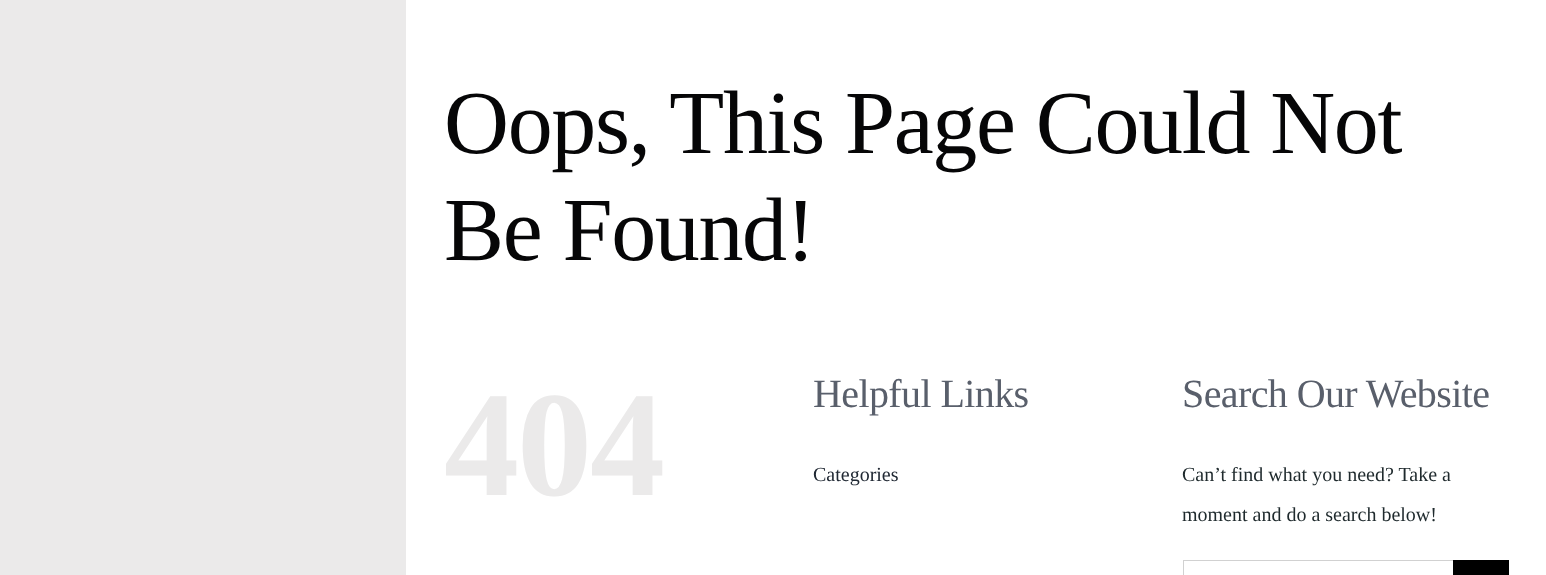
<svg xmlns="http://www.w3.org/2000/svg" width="1546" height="575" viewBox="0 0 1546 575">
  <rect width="100%" height="100%" fill="#ffffff"/>
  <rect x="0" y="0" width="406" height="575" fill="#ebeaea"/>
  <text x="444" y="153" font-family="Liberation Serif" font-size="90" letter-spacing="-1.35" fill="#060607">Oops, This Page Could Not</text>
  <text x="444" y="260" font-family="Liberation Serif" font-size="90" letter-spacing="-1.35" fill="#060607">Be Found!</text>
  <text x="444" y="495" font-family="Liberation Serif" font-size="150" font-weight="bold" letter-spacing="-2" fill="#ebeaea">404</text>
  <text x="813" y="407" font-family="Liberation Serif" font-size="40" letter-spacing="-0.6" fill="#595f6b">Helpful Links</text>
  <text x="813" y="481" font-family="Liberation Serif" font-size="20" fill="#212934">Categories</text>
  <text x="1182" y="407" font-family="Liberation Serif" font-size="40" letter-spacing="-0.6" fill="#595f6b">Search Our Website</text>
  <text x="1182" y="481" font-family="Liberation Serif" font-size="20" fill="#1f2a2d">Can’t find what you need? Take a</text>
  <text x="1182" y="521" font-family="Liberation Serif" font-size="20" fill="#1f2a2d">moment and do a search below!</text>
  <rect x="1183" y="560" width="270" height="1" fill="#d1d1d1"/>
  <rect x="1183" y="560" width="1" height="15" fill="#d1d1d1"/>
  <rect x="1453" y="560" width="56" height="15" fill="#000000"/>
</svg>
